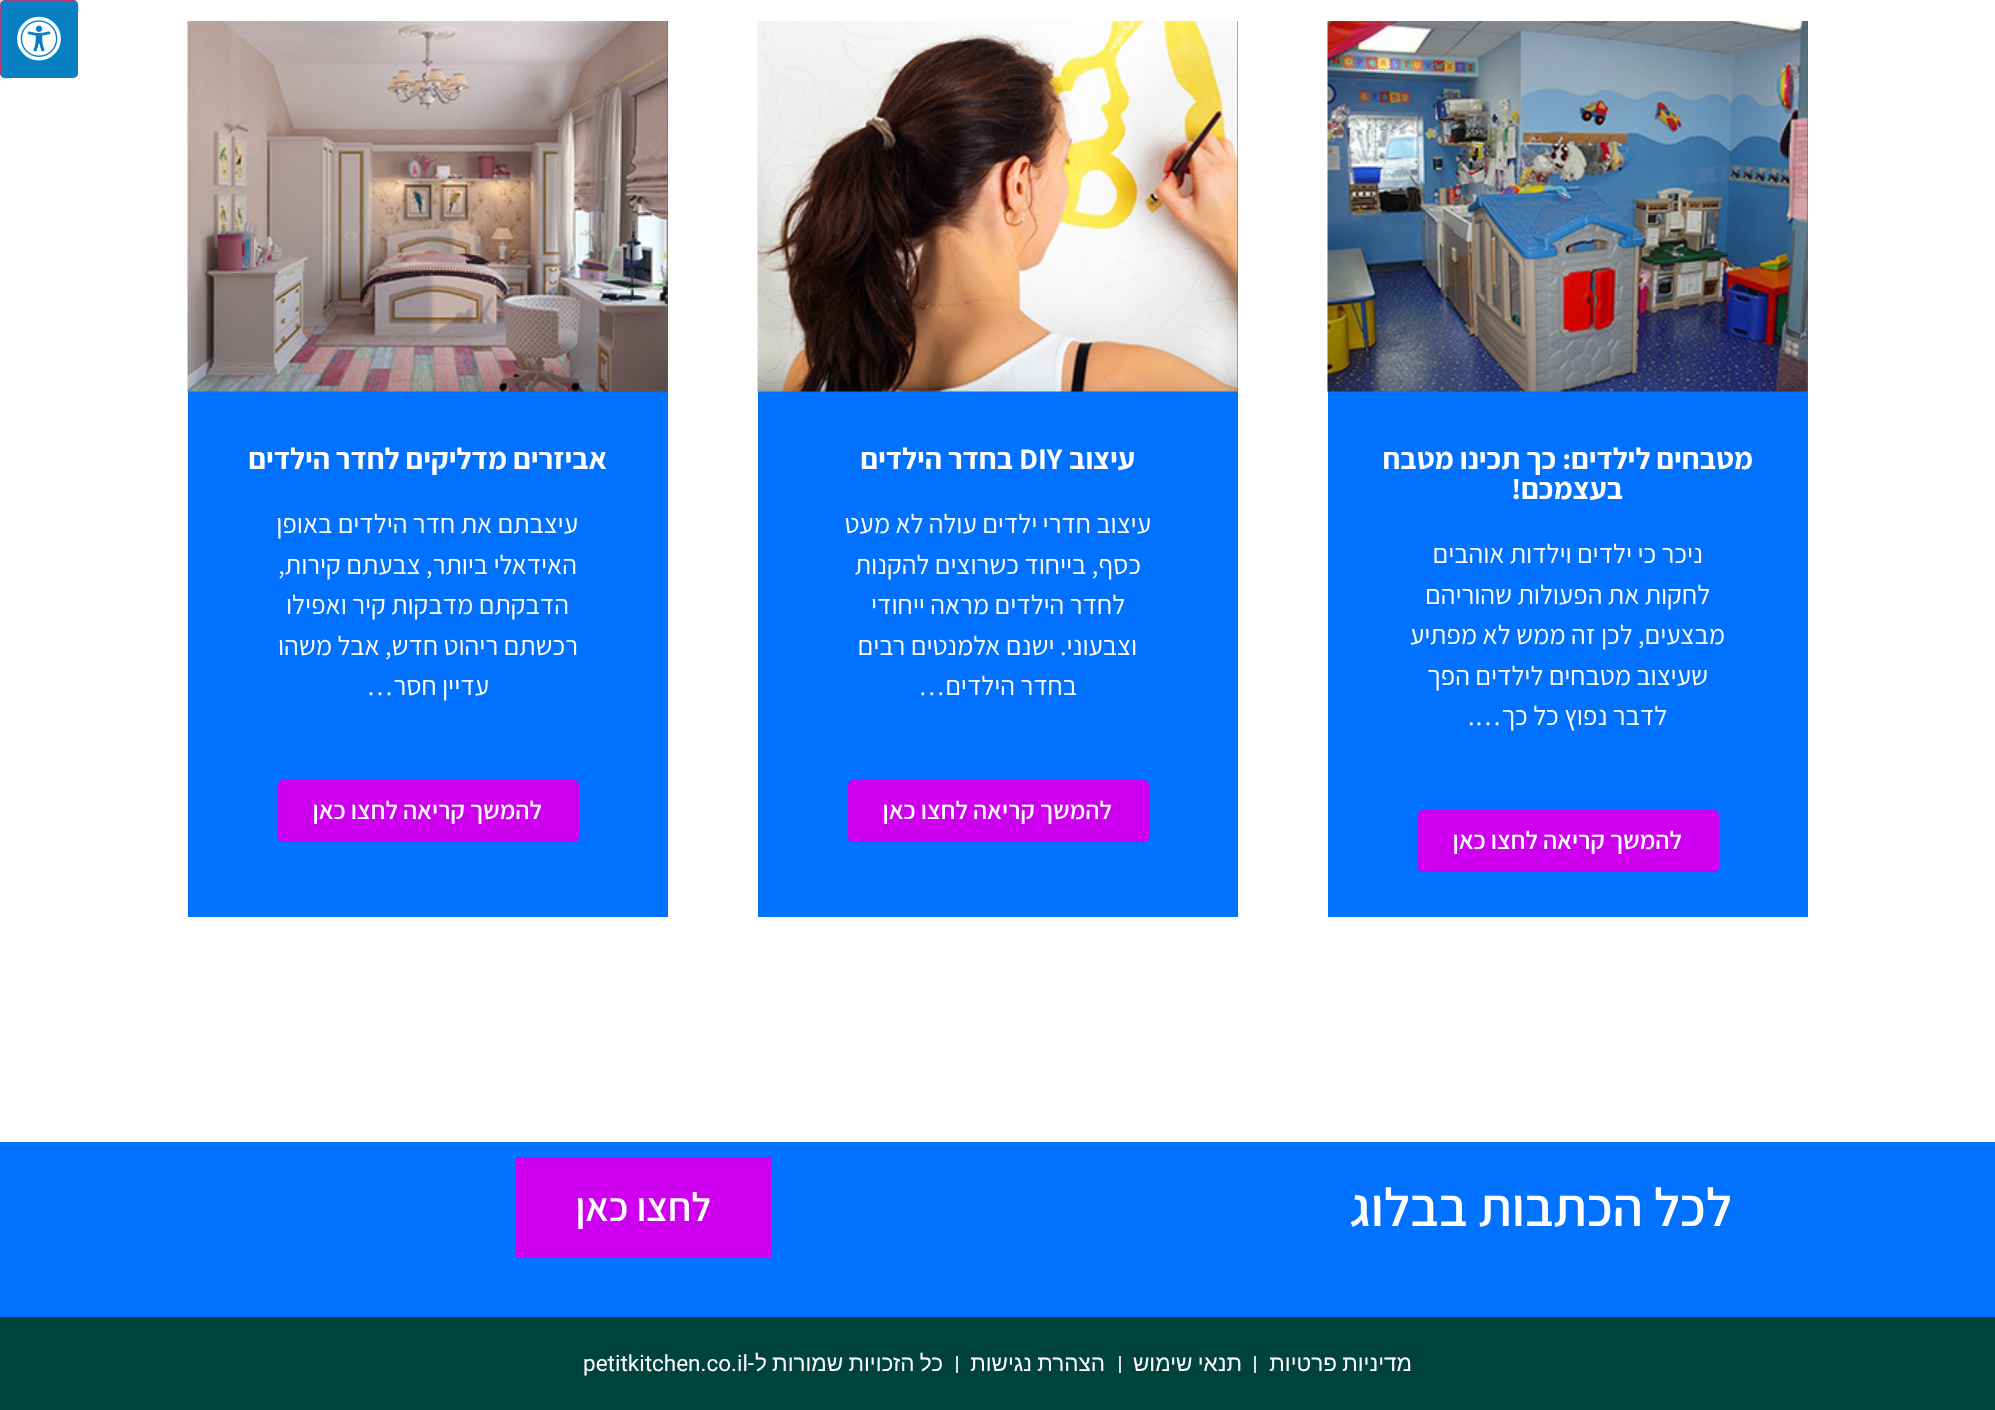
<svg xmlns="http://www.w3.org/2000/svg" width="1995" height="1410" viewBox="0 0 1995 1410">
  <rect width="100%" height="100%" fill="#ffffff"/>
  <rect x="0" y="0" width="78" height="78" rx="5" fill="#0780c3"/>
  <path d="M76 2C79 4.5 77 15 77 16V62C77 79.5 79.5 77 62 77H16C15 77 4.5 79 2 76" fill="none" stroke="#0780c3" stroke-width="1.5"/>
  <path d="M2 76C-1 73.5 1 63 1 62V16C1-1.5-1.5 1 16 1H62C63 1 73.5-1 76 2" fill="none" stroke="#cc3366" stroke-width="1.5"/>
  <image x="17" y="16" width="44" height="45" href="img1.png"/>
  <rect x="1328" y="21" width="480" height="896" fill="#0072ff"/>
  <image x="1327" y="21" width="481" height="371" href="img2.png"/>
  <text x="1753" y="469" font-family="Assistant" font-size="30" font-weight="bold" direction="rtl" fill="#ffffff">מטבחים לילדים: כך תכינו מטבח</text>
  <text x="1623" y="499" font-family="Assistant" font-size="30" font-weight="bold" direction="rtl" fill="#ffffff">בעצמכם!</text>
  <text x="1703" y="563" font-family="Assistant" font-size="27" direction="rtl" fill="#ffffff">ניכר כי ילדים וילדות אוהבים</text>
  <text x="1710" y="604" font-family="Assistant" font-size="27" direction="rtl" fill="#ffffff">לחקות את הפעולות שהוריהם</text>
  <text x="1725" y="644" font-family="Assistant" font-size="27" direction="rtl" fill="#ffffff">מבצעים, לכן זה ממש לא מפתיע</text>
  <text x="1708" y="685" font-family="Assistant" font-size="27" direction="rtl" fill="#ffffff">שעיצוב מטבחים לילדים הפך</text>
  <text x="1667" y="725" font-family="Assistant" font-size="27" direction="rtl" fill="#ffffff">לדבר נפוץ כל כך….</text>
  <rect x="1418" y="810" width="301" height="62" rx="5" fill="#cf00ef"/>
  <text x="1682" y="849" font-family="Assistant" font-size="25.5" font-weight="600" direction="rtl" fill="#ffffff">להמשך קריאה לחצו כאן</text>
  <rect x="758" y="21" width="480" height="896" fill="#0072ff"/>
  <image x="757" y="21" width="481" height="371" href="img3.png"/>
  <text x="1135" y="469" font-family="Assistant" font-size="30" font-weight="bold" direction="rtl" fill="#ffffff">עיצוב</text>
  <text x="1019" y="469" font-family="Assistant" font-size="30" font-weight="bold" fill="#ffffff">DIY</text>
  <text x="1013" y="469" font-family="Assistant" font-size="30" font-weight="bold" direction="rtl" fill="#ffffff">בחדר הילדים</text>
  <text x="1151" y="533" font-family="Assistant" font-size="27" direction="rtl" fill="#ffffff">עיצוב חדרי ילדים עולה לא מעט</text>
  <text x="1141" y="574" font-family="Assistant" font-size="27" direction="rtl" fill="#ffffff">כסף, בייחוד כשרוצים להקנות</text>
  <text x="1125" y="614" font-family="Assistant" font-size="27" direction="rtl" fill="#ffffff">לחדר הילדים מראה ייחודי</text>
  <text x="1137" y="655" font-family="Assistant" font-size="27" direction="rtl" fill="#ffffff">וצבעוני. ישנם אלמנטים רבים</text>
  <text x="1077" y="695" font-family="Assistant" font-size="27" direction="rtl" fill="#ffffff">בחדר הילדים…</text>
  <rect x="848" y="780" width="301" height="62" rx="5" fill="#cf00ef"/>
  <text x="1112" y="819" font-family="Assistant" font-size="25.5" font-weight="600" direction="rtl" fill="#ffffff">להמשך קריאה לחצו כאן</text>
  <rect x="188" y="21" width="480" height="896" fill="#0072ff"/>
  <image x="187" y="21" width="481" height="371" href="img4.png"/>
  <text x="607" y="469" font-family="Assistant" font-size="30" font-weight="bold" direction="rtl" fill="#ffffff">אביזרים מדליקים לחדר הילדים</text>
  <text x="578" y="533" font-family="Assistant" font-size="27" direction="rtl" fill="#ffffff">עיצבתם את חדר הילדים באופן</text>
  <text x="577" y="574" font-family="Assistant" font-size="27" direction="rtl" fill="#ffffff">האידאלי ביותר, צבעתם קירות,</text>
  <text x="569" y="614" font-family="Assistant" font-size="27" direction="rtl" fill="#ffffff">הדבקתם מדבקות קיר ואפילו</text>
  <text x="578" y="655" font-family="Assistant" font-size="27" direction="rtl" fill="#ffffff">רכשתם ריהוט חדש, אבל משהו</text>
  <text x="489" y="695" font-family="Assistant" font-size="27" direction="rtl" fill="#ffffff">עדיין חסר…</text>
  <rect x="278" y="780" width="301" height="62" rx="5" fill="#cf00ef"/>
  <text x="542" y="819" font-family="Assistant" font-size="25.5" font-weight="600" direction="rtl" fill="#ffffff">להמשך קריאה לחצו כאן</text>
  <rect x="0" y="1142" width="1995" height="175" fill="#0072ff"/>
  <text x="1732" y="1226" font-family="Assistant" font-size="54" font-weight="600" direction="rtl" fill="#ffffff">לכל הכתבות בבלוג</text>
  <rect x="516" y="1157" width="255" height="100" fill="#cf00ef"/>
  <text x="711" y="1221" font-family="Assistant" font-size="40.5" font-weight="600" direction="rtl" fill="#ffffff">לחצו כאן</text>
  <rect x="0" y="1317" width="1995" height="93" fill="#00423d"/>
  <text x="1412" y="1371" word-spacing="-1" font-family="Liberation Sans" font-size="22.5" direction="rtl" fill="#ffffff">מדיניות פרטיות</text>
  <rect x="1254" y="1356" width="2" height="17" fill="#dddddd"/>
  <text x="1242" y="1371" word-spacing="-1" font-family="Liberation Sans" font-size="22.5" direction="rtl" fill="#ffffff">תנאי שימוש</text>
  <rect x="1119" y="1356" width="2" height="17" fill="#dddddd"/>
  <text x="1105" y="1371" word-spacing="-1" font-family="Liberation Sans" font-size="22.5" direction="rtl" fill="#ffffff">הצהרת נגישות</text>
  <rect x="956" y="1356" width="2" height="17" fill="#dddddd"/>
  <text x="943" y="1371" word-spacing="-1" font-family="Liberation Sans" font-size="22.5" direction="rtl" fill="#ffffff">כל הזכויות שמורות ל</text>
  <text x="754" y="1371" font-family="Roboto" font-size="22.5" direction="rtl" fill="#ffffff">-</text>
  <text x="583" y="1371" font-family="Roboto" font-size="22.5" fill="#ffffff">petitkitchen.co.il</text>
</svg>
